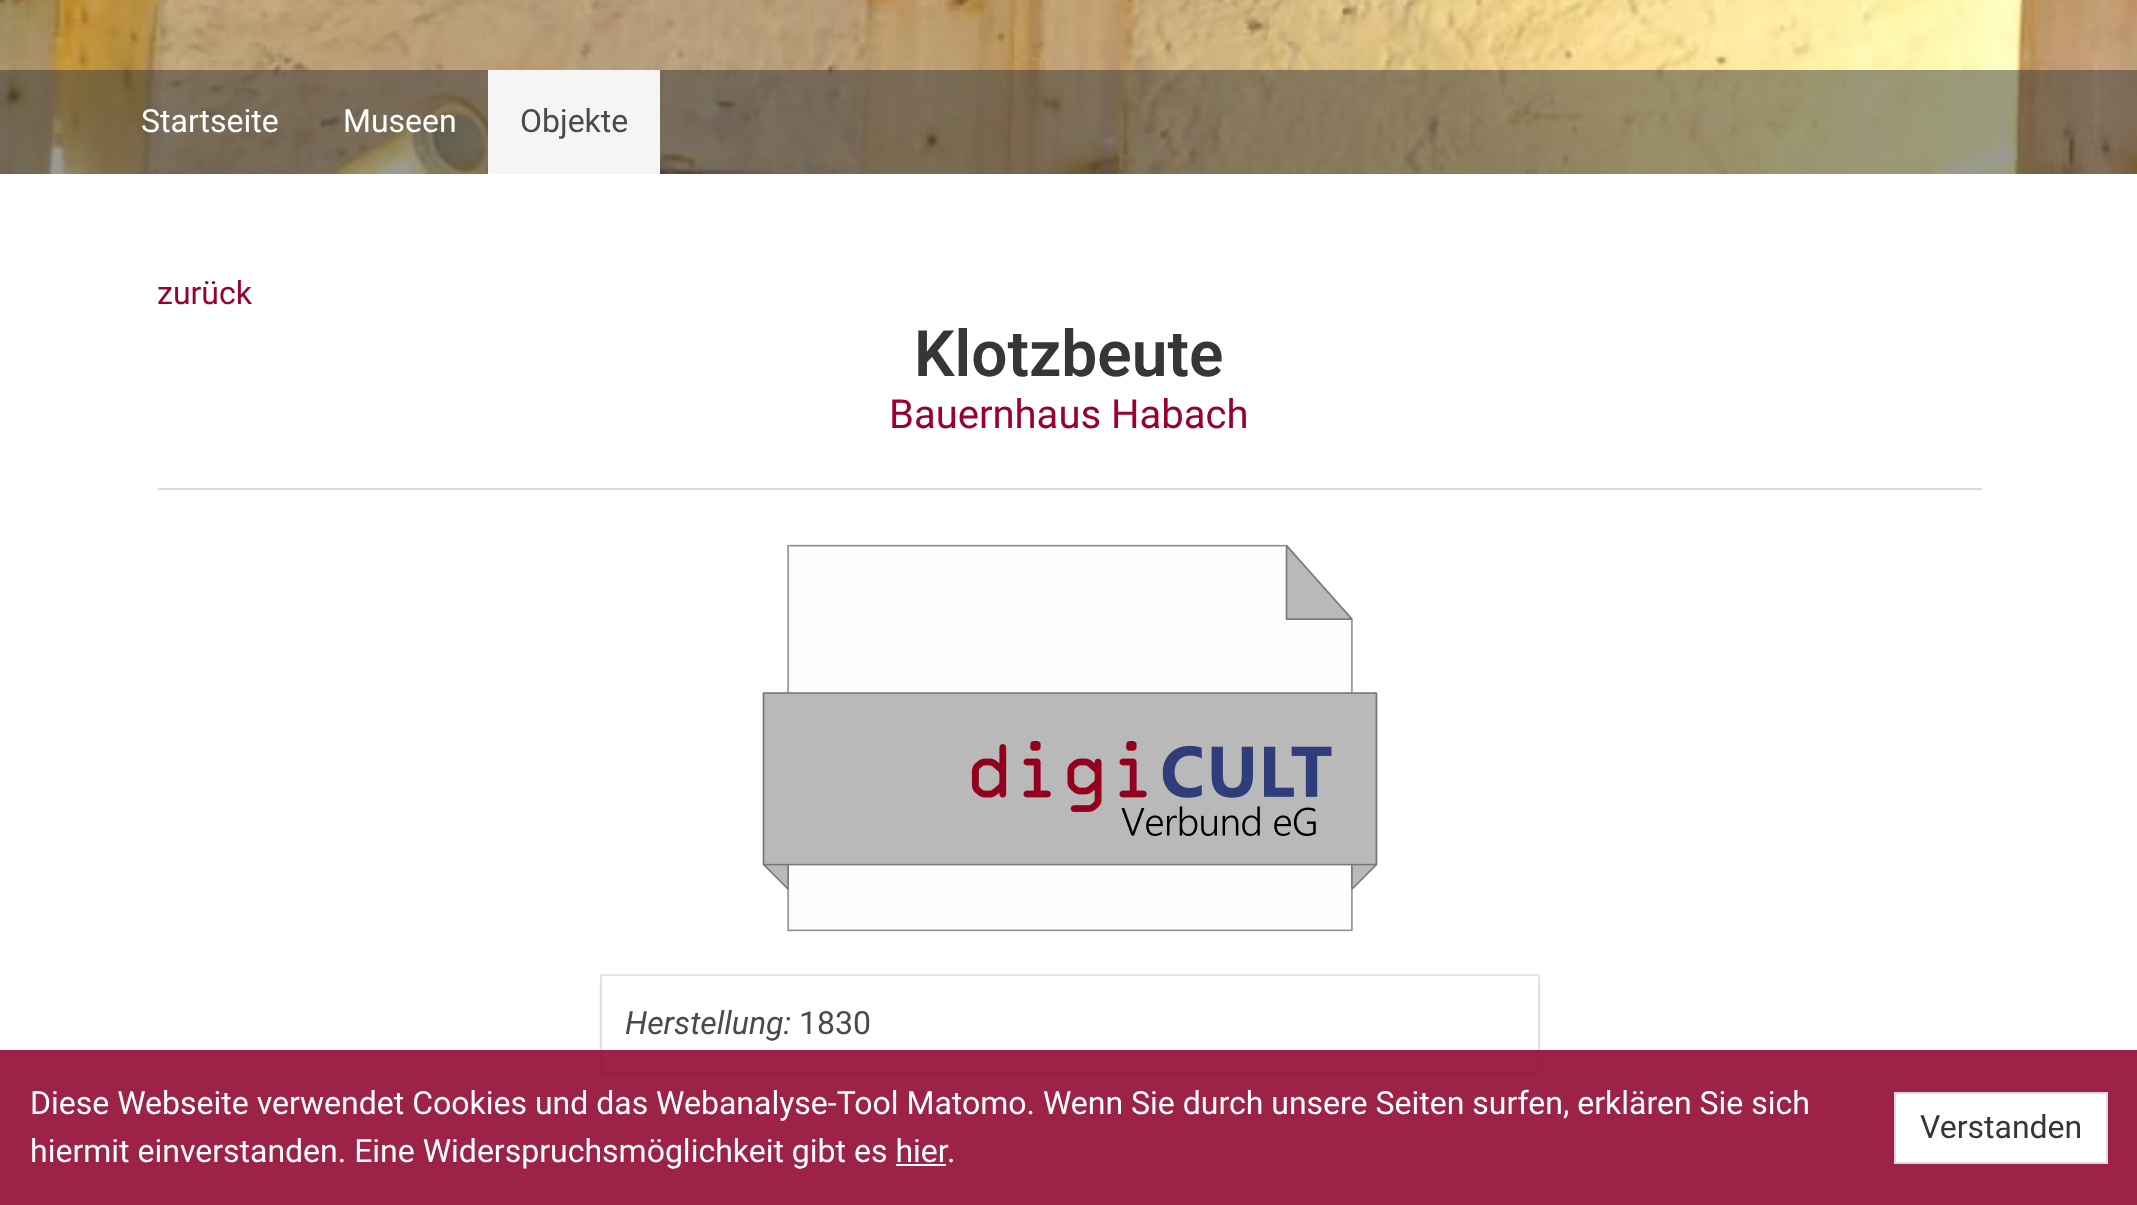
<svg xmlns="http://www.w3.org/2000/svg" width="2137" height="1205" viewBox="0 0 2137 1205">
  <defs>
    <clipPath id="clip1"><path d="M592 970H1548V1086H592ZM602 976H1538V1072H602Z" clip-rule="evenodd"/></clipPath>
    <filter id="blur1" x="-50%" y="-200%" width="200%" height="500%"><feGaussianBlur stdDeviation="3"/></filter>
  </defs>
  <rect width="100%" height="100%" fill="#ffffff"/>
  <image x="0" y="0" width="2137" height="174" href="img1.png"/>
  <rect x="0" y="70" width="2137" height="104" fill="#373737" fill-opacity="0.5"/>
  <text x="141" y="132" font-family="Roboto" font-size="32" fill="#ffffff">Startseite</text>
  <text x="343" y="132" font-family="Roboto" font-size="32" fill="#ffffff">Museen</text>
  <rect x="488" y="70" width="172" height="104" fill="#f5f5f5"/>
  <text x="520" y="132" font-family="Roboto" font-size="32" fill="#4a4a4a">Objekte</text>
  <text x="157" y="304" font-family="Roboto" font-size="32" fill="#990033">zurück</text>
  <text x="914" y="376" font-family="Roboto" font-size="64" font-weight="600" fill="#363636">Klotzbeute</text>
  <text x="889" y="428" font-family="Roboto" font-size="40" fill="#990033">Bauernhaus Habach</text>
  <rect x="158" y="488" width="1824" height="2" fill="#dbdbdb"/>
  <image x="762" y="544" width="616" height="388" href="img2.png"/>
  <rect x="601" y="975" width="938" height="98" fill="none" stroke="#e7e7e7" stroke-width="2"/>
  <g clip-path="url(#clip1)">
    <rect x="602" y="980" width="936" height="96" fill="#0a0a0a" fill-opacity="0.1" filter="url(#blur1)"/>
  </g>
  <text x="625" y="1034" font-family="Roboto" font-size="32" font-style="italic" fill="#4a4a4a">Herstellung:</text>
  <text x="799" y="1034" font-family="Roboto" font-size="32" fill="#4a4a4a">1830</text>
  <rect x="0" y="1050" width="2137" height="155" fill="#910a33" fill-opacity="0.9"/>
  <text x="30" y="1114" font-family="Roboto" font-size="32" fill="#ffffff">Diese Webseite verwendet Cookies und das Webanalyse-Tool Matomo. Wenn Sie durch unsere Seiten surfen, erklären Sie sich</text>
  <text x="30" y="1162" font-family="Roboto" font-size="32" fill="#ffffff">hiermit einverstanden. Eine Widerspruchsmöglichkeit gibt es hier</text>
  <text x="947" y="1162" font-family="Roboto" font-size="32" fill="#ffffff">.</text>
  <rect x="896" y="1164" width="50" height="2" fill="#ffffff"/>
  <rect x="1895" y="1093" width="212" height="70" fill="#ffffff" stroke="#dbdbdb" stroke-width="2"/>
  <text x="1920" y="1138" font-family="Roboto" font-size="32" fill="#363636">Verstanden</text>
</svg>
